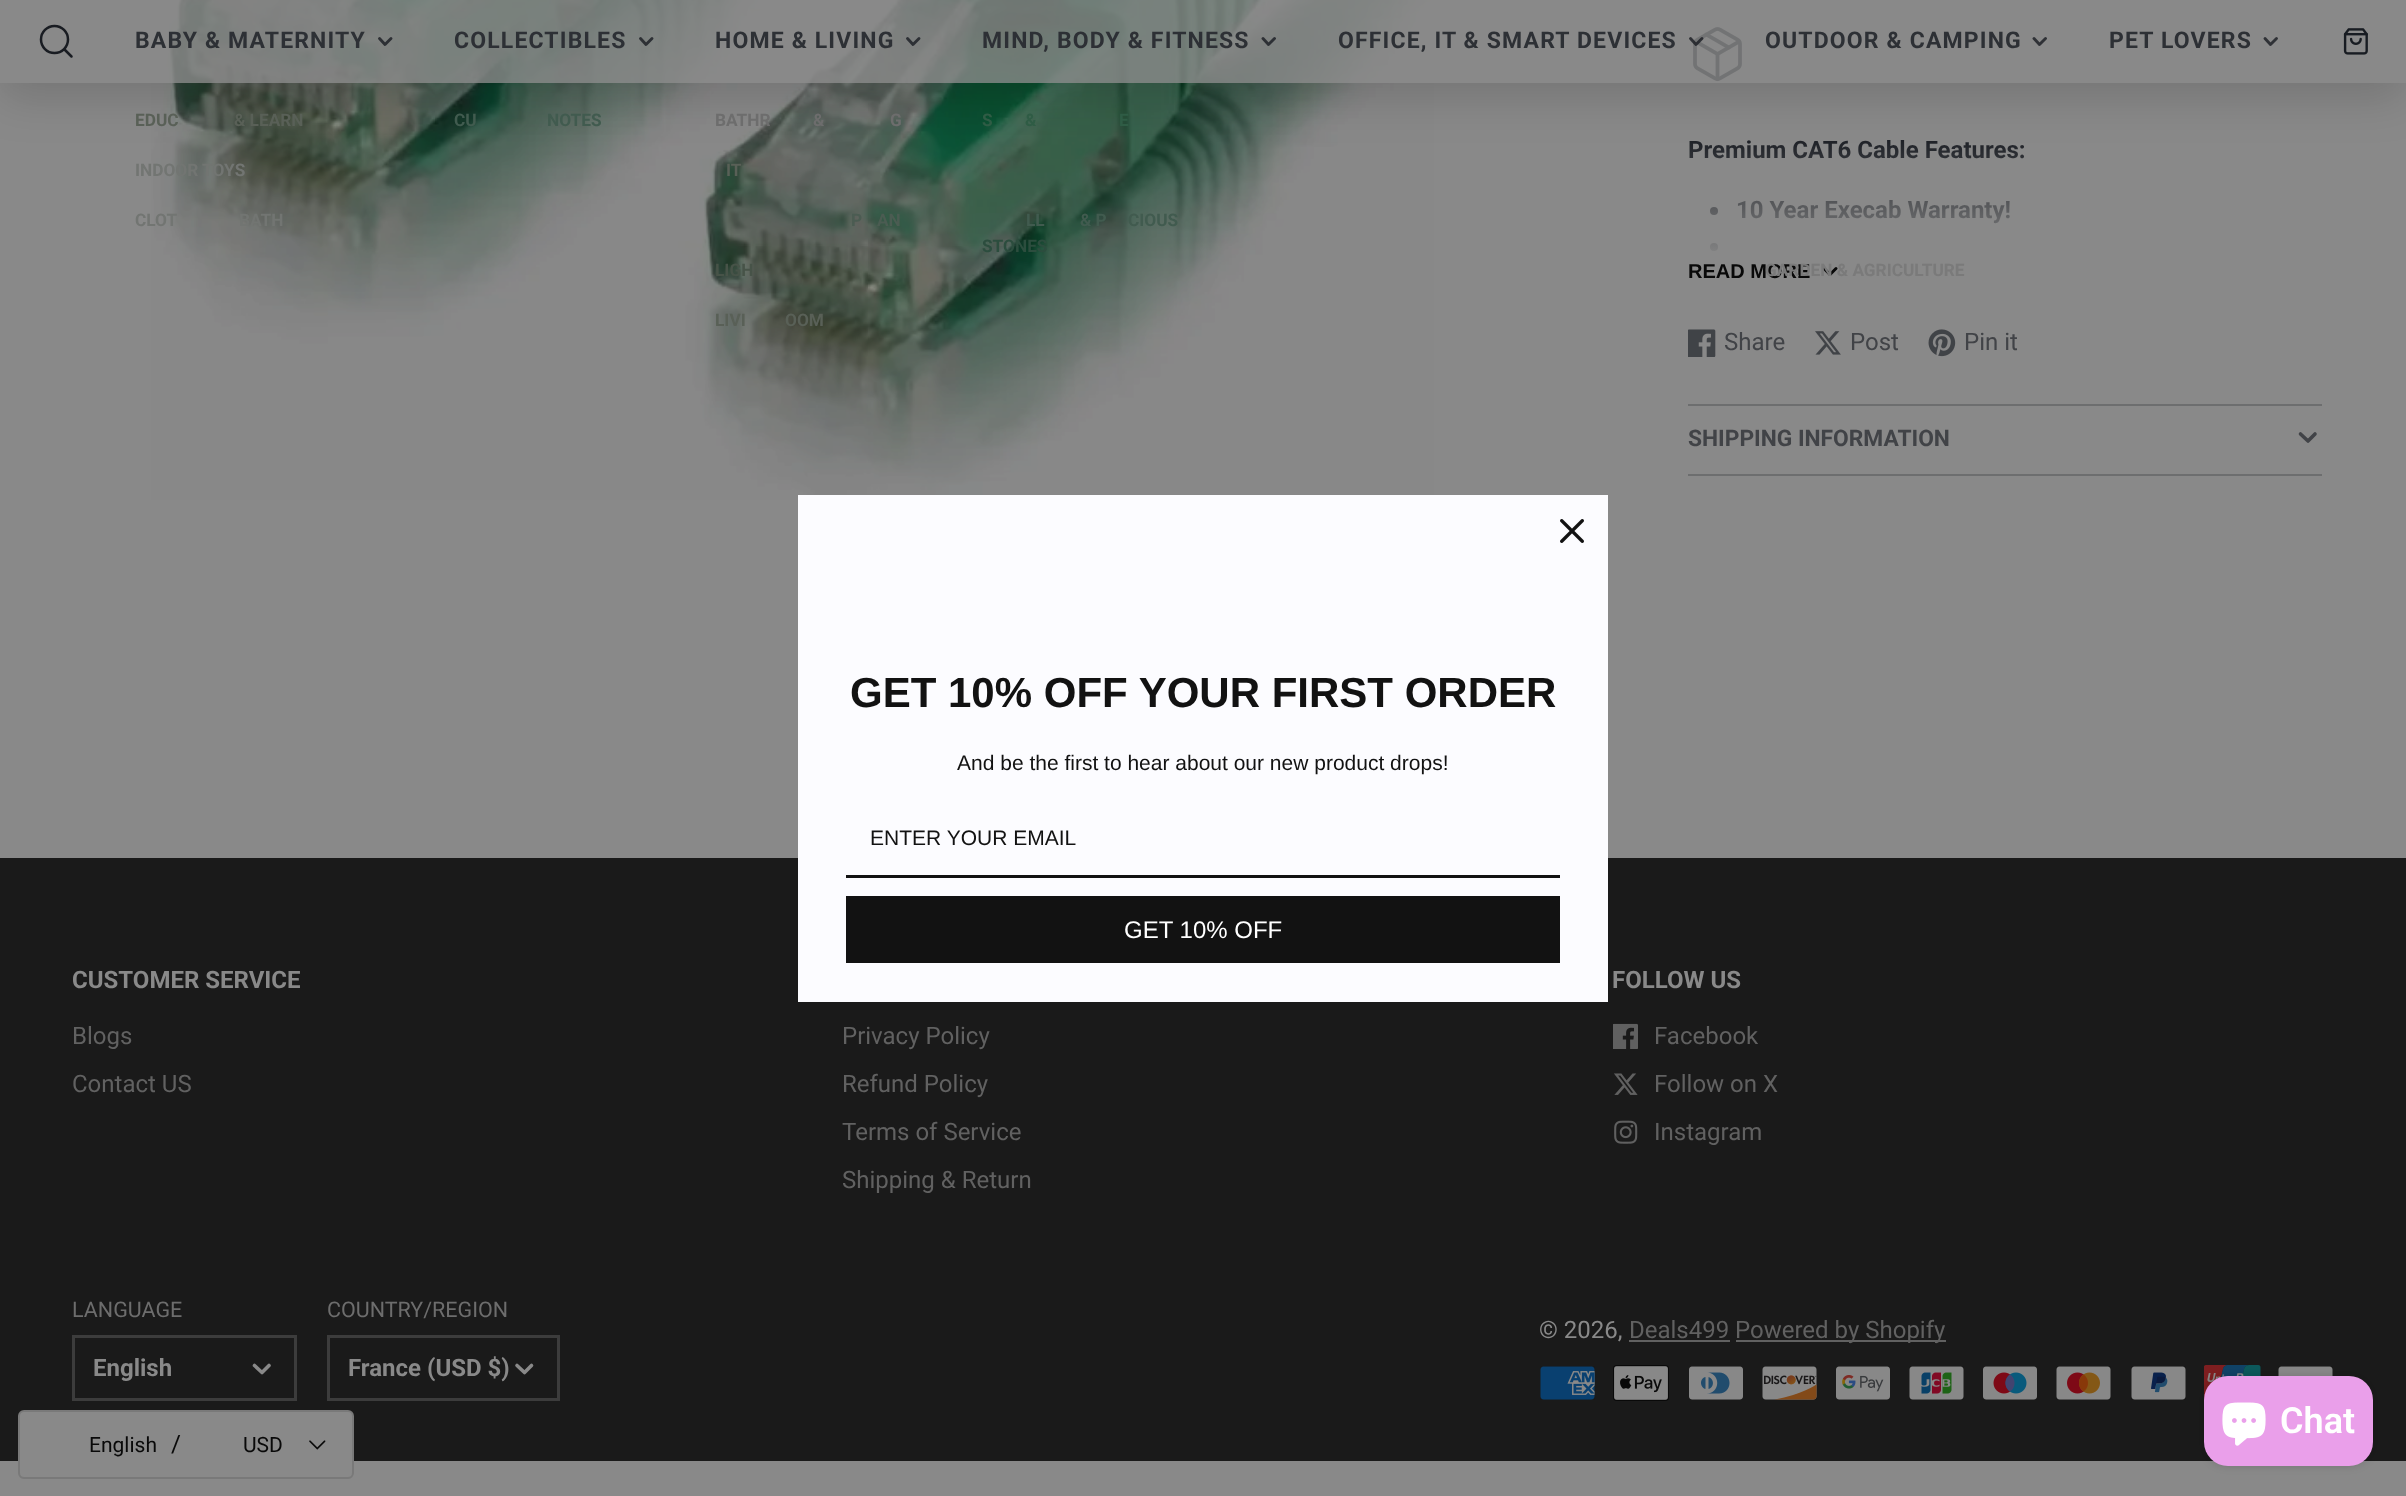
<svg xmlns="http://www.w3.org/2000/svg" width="2406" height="1496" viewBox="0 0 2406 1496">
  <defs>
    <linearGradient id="g1" gradientUnits="userSpaceOnUse" x1="2005" y1="284" x2="2005" y2="134"><stop offset="0.15" stop-color="#898989"/><stop offset="1" stop-color="#898989" stop-opacity="0"/></linearGradient>
    <clipPath id="clip1"><path d="M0 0H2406V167H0ZM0 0H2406V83H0Z" clip-rule="evenodd"/></clipPath>
    <filter id="blur1" x="-50%" y="-200%" width="200%" height="500%"><feGaussianBlur stdDeviation="22.5"/></filter>
    <filter id="blur2" x="-50%" y="-200%" width="200%" height="500%"><feGaussianBlur stdDeviation="4"/></filter>
  </defs>
  <rect width="100%" height="100%" fill="#898989"/>
  <image x="151" y="0" width="1283" height="500" href="img2.png"/>
  <image x="1693" y="27" width="49" height="55" href="img3.png"/>
  <text x="1688" y="158" font-family="Roboto" font-size="24" font-weight="bold" fill="#191c22">Premium CAT6 Cable Features:</text>
  <circle cx="1714" cy="211" r="4" fill="#191c22"/>
  <text x="1736" y="218" font-family="Roboto" font-size="24" font-weight="bold" fill="#191c22">10 Year Execab Warranty!</text>
  <circle cx="1714" cy="247" r="4" fill="#191c22"/>
  <rect x="1689" y="140" width="335" height="111" fill="url(#g1)"/>
  <g clip-path="url(#clip1)">
    <rect x="0" y="15" width="2406" height="83" fill="#090909" fill-opacity="0.15" filter="url(#blur1)"/>
  </g>
  <rect x="0" y="0" width="2406" height="83" fill="#898989" fill-opacity="0.8"/>
  <circle cx="54.5" cy="39.5" r="13.5" fill="none" stroke="#191c22" stroke-width="2.5"/>
  <path d="M71.5 56.5L64.5 49.5" fill="none" stroke="#191c22" stroke-width="2.5" stroke-linecap="round" stroke-linejoin="round"/>
  <text x="135" y="48" font-family="Roboto" font-size="23" font-weight="bold" letter-spacing="1.15" fill="#2d3035">BABY &amp; MATERNITY</text>
  <path d="M379.5 38.5L385 44.5L391 38.5" fill="none" stroke="#191c22" stroke-opacity="0.8" stroke-width="2.9" stroke-linecap="round" stroke-linejoin="round"/>
  <text x="135" y="126" font-family="Roboto" font-size="17.25" font-weight="bold" fill="#596057">EDUC</text>
  <text x="234" y="126" font-family="Roboto" font-size="17.25" font-weight="bold" fill="#596057">&amp; LEARN</text>
  <text x="135" y="176" font-family="Roboto" font-size="17.25" font-weight="bold" fill="#727572">INDOOR TOYS</text>
  <text x="135" y="226" font-family="Roboto" font-size="17.25" font-weight="bold" fill="#727572">CLOT</text>
  <text x="239" y="226" font-family="Roboto" font-size="17.25" font-weight="bold" fill="#727572">BATH</text>
  <text x="454" y="48" font-family="Roboto" font-size="23" font-weight="bold" letter-spacing="1.15" fill="#2d3035">COLLECTIBLES</text>
  <path d="M640.5 38.5L646 44.5L652 38.5" fill="none" stroke="#191c22" stroke-opacity="0.8" stroke-width="2.9" stroke-linecap="round" stroke-linejoin="round"/>
  <text x="454" y="126" font-family="Roboto" font-size="17.25" font-weight="bold" fill="#415b4f">CU</text>
  <text x="547" y="126" font-family="Roboto" font-size="17.25" font-weight="bold" fill="#415b4f">NOTES</text>
  <text x="715" y="48" font-family="Roboto" font-size="23" font-weight="bold" letter-spacing="1.15" fill="#2d3035">HOME &amp; LIVING</text>
  <path d="M907.5 38.5L913 44.5L919 38.5" fill="none" stroke="#2d3035" stroke-width="2.9" stroke-linecap="round" stroke-linejoin="round"/>
  <text x="715" y="126" font-family="Roboto" font-size="17.25" font-weight="bold" fill="#6d6d6d">BATHR</text>
  <text x="813" y="126" font-family="Roboto" font-size="17.25" font-weight="bold" fill="#6d6d6d">&amp;</text>
  <text x="890" y="126" font-family="Roboto" font-size="17.25" font-weight="bold" fill="#6d6d6d">G</text>
  <text x="726" y="176" font-family="Roboto" font-size="17.25" font-weight="bold" fill="#596057">IT</text>
  <text x="851" y="226" font-family="Roboto" font-size="17.25" font-weight="bold" fill="#4b5c52">P</text>
  <text x="877" y="226" font-family="Roboto" font-size="17.25" font-weight="bold" fill="#4b5c52">AN</text>
  <text x="715" y="276" font-family="Roboto" font-size="17.25" font-weight="bold" fill="#475348">LIGH</text>
  <text x="715" y="326" font-family="Roboto" font-size="17.25" font-weight="bold" fill="#596057">LIVI</text>
  <text x="785" y="326" font-family="Roboto" font-size="17.25" font-weight="bold" fill="#596057">OOM</text>
  <text x="982" y="48" font-family="Roboto" font-size="23" font-weight="bold" letter-spacing="1.15" fill="#2d3035">MIND, BODY &amp; FITNESS</text>
  <path d="M1263 38.5L1268.5 44.5L1274.5 38.5" fill="none" stroke="#191c22" stroke-opacity="0.8" stroke-width="2.9" stroke-linecap="round" stroke-linejoin="round"/>
  <text x="982" y="126" font-family="Roboto" font-size="17.25" font-weight="bold" fill="#2f5c45">S</text>
  <text x="1025" y="126" font-family="Roboto" font-size="17.25" font-weight="bold" fill="#2f5c45">&amp;</text>
  <text x="1119" y="126" font-family="Roboto" font-size="17.25" font-weight="bold" fill="#2f5c45">E</text>
  <text x="1026" y="226" font-family="Roboto" font-size="17.25" font-weight="bold" fill="#415b4f">LL</text>
  <text x="1080" y="226" font-family="Roboto" font-size="17.25" font-weight="bold" fill="#415b4f">&amp; P</text>
  <text x="1128" y="226" font-family="Roboto" font-size="17.25" font-weight="bold" fill="#415b4f">CIOUS</text>
  <text x="982" y="252" font-family="Roboto" font-size="17.25" font-weight="bold" fill="#2c4d3e">STONES</text>
  <text x="1338" y="48" font-family="Roboto" font-size="23" font-weight="bold" letter-spacing="1.15" fill="#2d3035">OFFICE, IT &amp; SMART DEVICES</text>
  <path d="M1690.5 38.5L1696 44.5L1702 38.5" fill="none" stroke="#191c22" stroke-opacity="0.8" stroke-width="2.9" stroke-linecap="round" stroke-linejoin="round"/>
  <text x="1765" y="48" font-family="Roboto" font-size="23" font-weight="bold" letter-spacing="1.15" fill="#2d3035">OUTDOOR &amp; CAMPING</text>
  <path d="M2034 38.5L2039.5 44.5L2045.5 38.5" fill="none" stroke="#191c22" stroke-opacity="0.8" stroke-width="2.9" stroke-linecap="round" stroke-linejoin="round"/>
  <text x="1688" y="278" font-family="Liberation Sans" font-size="20" font-weight="bold" fill="#090909">READ MORE</text>
  <path d="M1824 268.5L1830 274.5L1836 268.5" fill="none" stroke="#090909" stroke-width="3" stroke-linecap="round" stroke-linejoin="round"/>
  <text x="1765" y="276" font-family="Roboto" font-size="17.25" font-weight="bold" fill="#7a7a7a">GARDEN &amp; AGRICULTURE</text>
  <text x="2109" y="48" font-family="Roboto" font-size="23" font-weight="bold" letter-spacing="1.15" fill="#2d3035">PET LOVERS</text>
  <path d="M2265 38.5L2270.5 44.5L2276.5 38.5" fill="none" stroke="#191c22" stroke-opacity="0.8" stroke-width="2.9" stroke-linecap="round" stroke-linejoin="round"/>
  <image x="2343" y="28" width="25" height="27" href="img1.png"/>
  <image x="1688" y="329" width="28" height="28" href="img4.png"/>
  <text x="1724" y="350" font-family="Roboto" font-size="24" fill="#414347">Share</text>
  <image x="1815" y="331" width="26" height="24" href="img5.png"/>
  <text x="1850" y="350" font-family="Roboto" font-size="24" fill="#414347">Post</text>
  <image x="1928" y="329" width="28" height="28" href="img6.png"/>
  <text x="1964" y="350" font-family="Roboto" font-size="24" fill="#414347">Pin it</text>
  <rect x="1688" y="404" width="634" height="2" fill="#6d6e6f"/>
  <text x="1688" y="446" font-family="Roboto" font-size="22.75" font-weight="bold" fill="#414347">SHIPPING INFORMATION</text>
  <path d="M2300.5 434L2308 441L2315 434" fill="none" stroke="#414347" stroke-width="3.6" stroke-linecap="round" stroke-linejoin="round"/>
  <rect x="1688" y="474" width="634" height="2" fill="#6d6e6f"/>
  <rect x="0" y="858" width="2406" height="603" fill="#1a1a1a"/>
  <rect x="798" y="495" width="810" height="507" fill="#fcfcff"/>
  <image x="1560" y="519" width="24" height="24" href="img7.png"/>
  <text x="850" y="707" font-family="Liberation Sans" font-size="42" font-weight="bold" fill="#121212">GET 10% OFF YOUR FIRST ORDER</text>
  <text x="957" y="770" font-family="Liberation Sans" font-size="21" fill="#121212">And be the first to hear about our new product drops!</text>
  <rect x="846" y="875" width="714" height="3" fill="#121212"/>
  <text x="870" y="845" font-family="Liberation Sans" font-size="21" fill="#121212">ENTER YOUR EMAIL</text>
  <rect x="846" y="896" width="714" height="67" fill="#121212"/>
  <text x="1124" y="938" font-family="Liberation Sans" font-size="24" fill="#ffffff">GET 10% OFF</text>
  <text x="72" y="988" font-family="Roboto" font-size="24" font-weight="bold" fill="#898989">CUSTOMER SERVICE</text>
  <text x="72" y="1044" font-family="Roboto" font-size="24" fill="#616161">Blogs</text>
  <text x="72" y="1092" font-family="Roboto" font-size="24" fill="#616161">Contact US</text>
  <text x="842" y="1044" font-family="Roboto" font-size="24" fill="#616161">Privacy Policy</text>
  <text x="842" y="1092" font-family="Roboto" font-size="24" fill="#616161">Refund Policy</text>
  <text x="842" y="1140" font-family="Roboto" font-size="24" fill="#616161">Terms of Service</text>
  <text x="842" y="1188" font-family="Roboto" font-size="24" fill="#616161">Shipping &amp; Return</text>
  <text x="1612" y="988" font-family="Roboto" font-size="24" font-weight="bold" fill="#898989">FOLLOW US</text>
  <image x="1613" y="1023" width="25" height="26" href="img8.png"/>
  <text x="1654" y="1044" font-family="Roboto" font-size="24" fill="#616161">Facebook</text>
  <image x="1614" y="1073" width="24" height="22" href="img9.png"/>
  <text x="1654" y="1092" font-family="Roboto" font-size="24" fill="#616161">Follow on X</text>
  <image x="1614" y="1120" width="24" height="24" href="img10.png"/>
  <text x="1654" y="1140" font-family="Roboto" font-size="24" fill="#616161">Instagram</text>
  <text x="72" y="1317" font-family="Roboto" font-size="21.5" fill="#6d6d6d">LANGUAGE</text>
  <rect x="73.5" y="1336.5" width="222" height="63" fill="none" stroke="#3c3c3c" stroke-width="3"/>
  <text x="93" y="1376" font-family="Roboto" font-size="24" font-weight="bold" fill="#898989">English</text>
  <path d="M254.5 1365.5L262 1372.5L269 1365.5" fill="none" stroke="#898989" stroke-width="3.6" stroke-linecap="round" stroke-linejoin="round"/>
  <text x="327" y="1317" font-family="Roboto" font-size="21.5" fill="#6d6d6d">COUNTRY/REGION</text>
  <rect x="328.5" y="1336.5" width="230" height="63" fill="none" stroke="#3c3c3c" stroke-width="3"/>
  <text x="348" y="1376" font-family="Roboto" font-size="24" font-weight="bold" fill="#898989">France (USD $)</text>
  <path d="M517 1365.5L524.5 1372.5L531.5 1365.5" fill="none" stroke="#898989" stroke-width="3.6" stroke-linecap="round" stroke-linejoin="round"/>
  <text x="1539" y="1338" font-family="Roboto" font-size="24" fill="#898989">© 2026,</text>
  <text x="1629" y="1338" font-family="Roboto" font-size="24" fill="#616161">Deals499</text>
  <rect x="1629" y="1340" width="101" height="2" fill="#616161"/>
  <rect x="1736" y="1340" width="210" height="2" fill="#616161"/>
  <text x="1735" y="1338" font-family="Roboto" font-size="24" fill="#616161">Powered by Shopify</text>
  <image x="1540" y="1366" width="55" height="34" href="img11.png"/>
  <image x="1613" y="1365" width="56" height="36" href="img12.png"/>
  <image x="1689" y="1366" width="54" height="34" href="img13.png"/>
  <image x="1762" y="1366" width="55" height="34" href="img14.png"/>
  <image x="1836" y="1366" width="54" height="34" href="img15.png"/>
  <image x="1909" y="1366" width="55" height="34" href="img16.png"/>
  <image x="1983" y="1366" width="54" height="34" href="img17.png"/>
  <image x="2056" y="1366" width="55" height="34" href="img18.png"/>
  <image x="2131" y="1366" width="55" height="34" href="img19.png"/>
  <image x="2204" y="1365" width="57" height="35" href="img20.png"/>
  <image x="2278" y="1366" width="55" height="10" href="img21.png"/>
  <rect x="2204" y="1376" width="169" height="90" rx="24" fill="#000000" fill-opacity="0.15" filter="url(#blur2)"/>
  <rect x="2204" y="1376" width="169" height="90" rx="24" fill="#ea9fea"/>
  <image x="2222" y="1402" width="44" height="44" href="img22.png"/>
  <text x="2280" y="1433" font-family="Roboto" font-size="36" font-weight="600" fill="#ffffff">Chat</text>
  <rect x="19" y="1411" width="334" height="67" rx="5" fill="#898989" stroke="#797979" stroke-width="2"/>
  <text x="89" y="1452" font-family="Roboto" font-size="21" fill="#090909">English</text>
  <text x="171" y="1452" font-family="Roboto" font-size="24" fill="#090909">/</text>
  <text x="243" y="1452" font-family="Roboto" font-size="21" fill="#090909">USD</text>
  <image x="309" y="1440" width="17" height="10" href="img23.png"/>
</svg>
